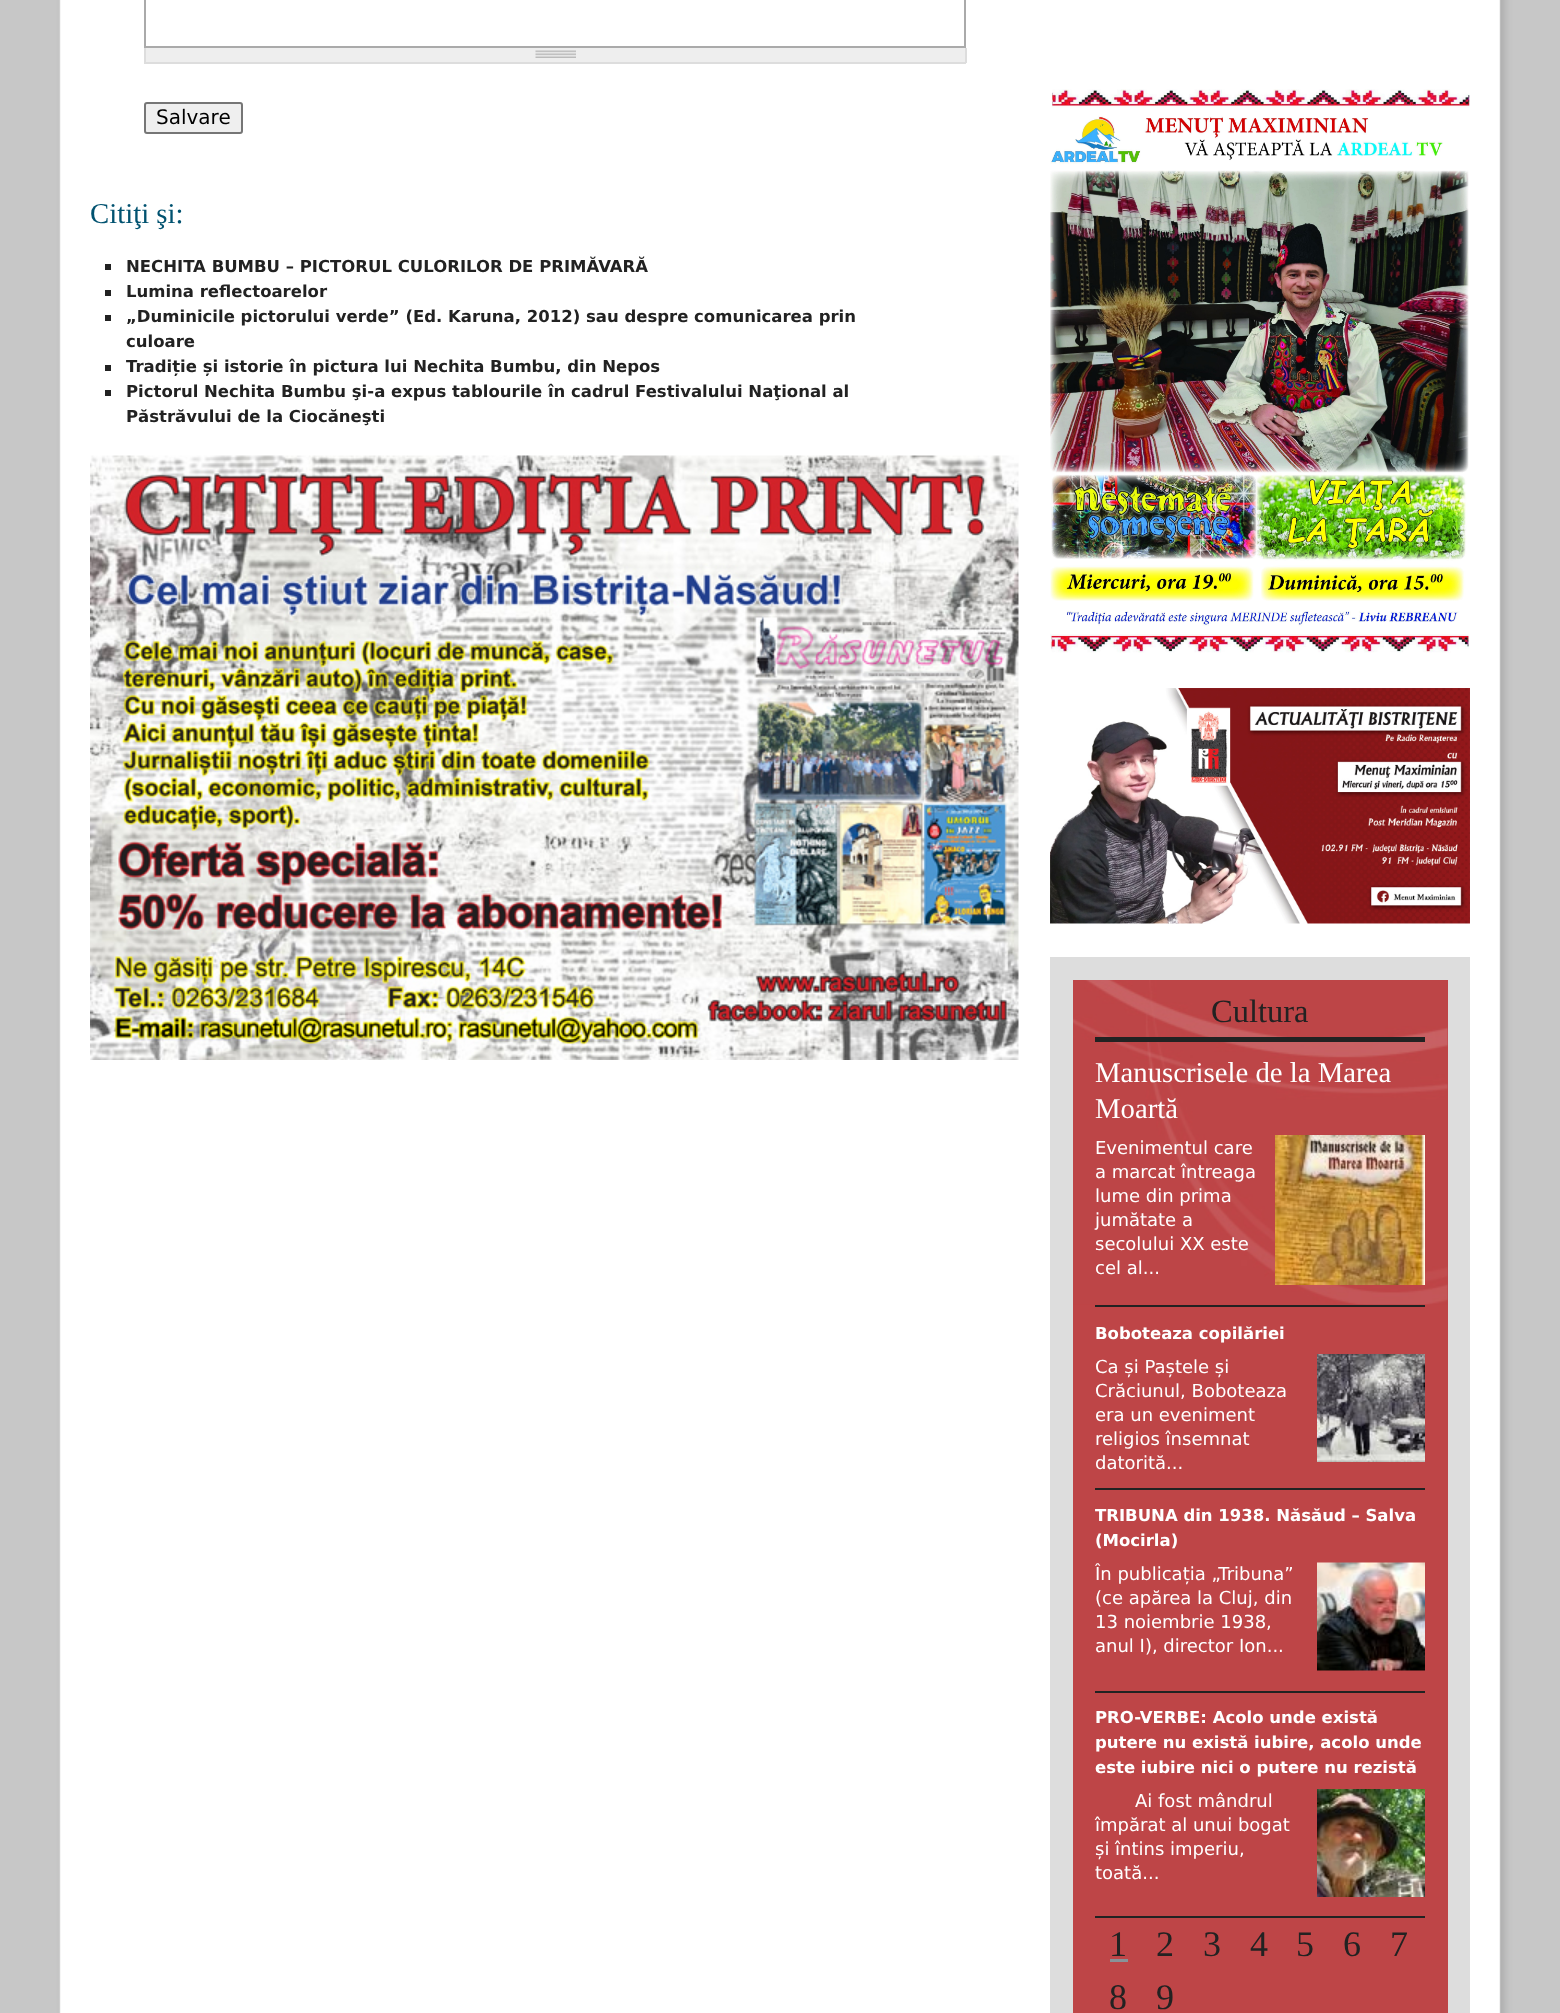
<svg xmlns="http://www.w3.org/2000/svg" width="1560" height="2013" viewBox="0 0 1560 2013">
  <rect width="100%" height="100%" fill="#c7c7c7"/>
  <image x="45" y="0" width="1470" height="2013" href="img1.png"/>
  <rect x="145" y="-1" width="820" height="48" fill="none" stroke="#aaaaaa" stroke-width="2"/>
  <rect x="146" y="48" width="819" height="14" fill="#eeeeee"/>
  <image x="535" y="50" width="41" height="8" href="img2.png"/>
  <rect x="965" y="48" width="2" height="15" fill="#dddddd"/>
  <rect x="144" y="62" width="822" height="2" fill="#dddddd"/>
  <rect x="144" y="48" width="2" height="15" fill="#dddddd"/>
  <rect x="145" y="103" width="97" height="30" rx="2" fill="#efefef" stroke="#767676" stroke-width="2"/>
  <text x="156" y="124" font-family="DejaVu Sans" font-size="20" fill="#000000">Salvare</text>
  <text x="90" y="223" font-family="Liberation Serif" font-size="28.75" fill="#015270">Citiţi şi:</text>
  <rect x="105" y="264" width="6" height="6" fill="#222222"/>
  <text x="126" y="272" font-family="DejaVu Sans" font-size="16.5" font-weight="bold" fill="#222222">NECHITA BUMBU – PICTORUL CULORILOR DE PRIMĂVARĂ</text>
  <rect x="105" y="290" width="6" height="6" fill="#222222"/>
  <text x="126" y="297" font-family="DejaVu Sans" font-size="16.5" font-weight="bold" fill="#222222">Lumina reflectoarelor</text>
  <rect x="105" y="315" width="6" height="6" fill="#222222"/>
  <text x="126" y="322" font-family="DejaVu Sans" font-size="16.5" font-weight="bold" fill="#222222">„Duminicile pictorului verde” (Ed. Karuna, 2012) sau despre comunicarea prin</text>
  <text x="126" y="347" font-family="DejaVu Sans" font-size="16.5" font-weight="bold" fill="#222222">culoare</text>
  <rect x="105" y="365" width="6" height="6" fill="#222222"/>
  <text x="126" y="372" font-family="DejaVu Sans" font-size="16.5" font-weight="bold" fill="#222222">Tradiție și istorie în pictura lui Nechita Bumbu, din Nepos</text>
  <rect x="105" y="390" width="6" height="6" fill="#222222"/>
  <text x="126" y="397" font-family="DejaVu Sans" font-size="16.5" font-weight="bold" fill="#222222">Pictorul Nechita Bumbu şi-a expus tablourile în cadrul Festivalului Naţional al</text>
  <text x="126" y="422" font-family="DejaVu Sans" font-size="16.5" font-weight="bold" fill="#222222">Păstrăvului de la Ciocăneşti</text>
  <image x="90" y="455" width="929" height="605" href="img3.png"/>
  <image x="1050" y="89" width="420" height="564" href="img4.png"/>
  <image x="1050" y="688" width="420" height="236" href="img5.png"/>
  <rect x="1073" y="980" width="375" height="1033" fill="#be4547"/>
  <image x="1073" y="980" width="375" height="325" href="img6.png"/>
  <rect x="1073" y="957" width="375" height="23" fill="#dddddd"/>
  <rect x="1448" y="957" width="22" height="1056" fill="#dddddd"/>
  <rect x="1050" y="957" width="23" height="1056" fill="#dddddd"/>
  <rect x="1095" y="1037" width="330" height="5" fill="#222222"/>
  <text x="1211" y="1022" font-family="Liberation Serif" font-size="32.5" fill="#222222">Cultura</text>
  <text x="1095" y="1082" font-family="Liberation Serif" font-size="28.75" fill="#ffffff">Manuscrisele de la Marea</text>
  <text x="1095" y="1118" font-family="Liberation Serif" font-size="28.75" fill="#ffffff">Moartă</text>
  <text x="1095" y="1154" font-family="DejaVu Sans" font-size="18" fill="#ffffff">Evenimentul care</text>
  <text x="1095" y="1178" font-family="DejaVu Sans" font-size="18" fill="#ffffff">a marcat întreaga</text>
  <text x="1095" y="1202" font-family="DejaVu Sans" font-size="18" fill="#ffffff">lume din prima</text>
  <text x="1095" y="1226" font-family="DejaVu Sans" font-size="18" fill="#ffffff">jumătate a</text>
  <text x="1095" y="1250" font-family="DejaVu Sans" font-size="18" fill="#ffffff">secolului XX este</text>
  <text x="1095" y="1274" font-family="DejaVu Sans" font-size="18" fill="#ffffff">cel al...</text>
  <image x="1275" y="1135" width="150" height="150" href="img7.png"/>
  <rect x="1095" y="1305" width="330" height="2" fill="#222222"/>
  <text x="1095" y="1339" font-family="DejaVu Sans" font-size="16.5" font-weight="bold" fill="#ffffff">Boboteaza copilăriei</text>
  <text x="1095" y="1373" font-family="DejaVu Sans" font-size="18" fill="#ffffff">Ca și Paștele și</text>
  <text x="1095" y="1397" font-family="DejaVu Sans" font-size="18" fill="#ffffff">Crăciunul, Boboteaza</text>
  <text x="1095" y="1421" font-family="DejaVu Sans" font-size="18" fill="#ffffff">era un eveniment</text>
  <text x="1095" y="1445" font-family="DejaVu Sans" font-size="18" fill="#ffffff">religios însemnat</text>
  <text x="1095" y="1469" font-family="DejaVu Sans" font-size="18" fill="#ffffff">datorită...</text>
  <image x="1317" y="1354" width="108" height="108" href="img8.png"/>
  <rect x="1095" y="1488" width="330" height="2" fill="#222222"/>
  <text x="1095" y="1521" font-family="DejaVu Sans" font-size="16.5" font-weight="bold" fill="#ffffff">TRIBUNA din 1938. Năsăud – Salva</text>
  <text x="1095" y="1546" font-family="DejaVu Sans" font-size="16.5" font-weight="bold" fill="#ffffff">(Mocirla)</text>
  <text x="1095" y="1580" font-family="DejaVu Sans" font-size="18" fill="#ffffff">În publicația „Tribuna”</text>
  <text x="1095" y="1604" font-family="DejaVu Sans" font-size="18" fill="#ffffff">(ce apărea la Cluj, din</text>
  <text x="1095" y="1628" font-family="DejaVu Sans" font-size="18" fill="#ffffff">13 noiembrie 1938,</text>
  <text x="1095" y="1652" font-family="DejaVu Sans" font-size="18" fill="#ffffff">anul I), director Ion...</text>
  <image x="1317" y="1562" width="108" height="109" href="img9.png"/>
  <rect x="1095" y="1691" width="330" height="2" fill="#222222"/>
  <text x="1095" y="1723" font-family="DejaVu Sans" font-size="16.5" font-weight="bold" fill="#ffffff">PRO-VERBE: Acolo unde există</text>
  <text x="1095" y="1748" font-family="DejaVu Sans" font-size="16.5" font-weight="bold" fill="#ffffff">putere nu există iubire, acolo unde</text>
  <text x="1095" y="1773" font-family="DejaVu Sans" font-size="16.5" font-weight="bold" fill="#ffffff">este iubire nici o putere nu rezistă</text>
  <text x="1135" y="1807" font-family="DejaVu Sans" font-size="18" fill="#ffffff">Ai fost mândrul</text>
  <text x="1095" y="1831" font-family="DejaVu Sans" font-size="18" fill="#ffffff">împărat al unui bogat</text>
  <text x="1095" y="1855" font-family="DejaVu Sans" font-size="18" fill="#ffffff">și întins imperiu,</text>
  <text x="1095" y="1879" font-family="DejaVu Sans" font-size="18" fill="#ffffff">toată...</text>
  <image x="1317" y="1789" width="108" height="108" href="img10.png"/>
  <rect x="1095" y="1916" width="330" height="2" fill="#222222"/>
  <text x="1109" y="1956" font-family="Liberation Serif" font-size="36" fill="#222222">1</text>
  <rect x="1110" y="1959" width="18" height="3" fill="#889399"/>
  <text x="1156" y="1956" font-family="Liberation Serif" font-size="36" fill="#222222">2</text>
  <text x="1203" y="1956" font-family="Liberation Serif" font-size="36" fill="#222222">3</text>
  <text x="1250" y="1956" font-family="Liberation Serif" font-size="36" fill="#222222">4</text>
  <text x="1296" y="1956" font-family="Liberation Serif" font-size="36" fill="#222222">5</text>
  <text x="1343" y="1956" font-family="Liberation Serif" font-size="36" fill="#222222">6</text>
  <text x="1390" y="1956" font-family="Liberation Serif" font-size="36" fill="#222222">7</text>
  <text x="1109" y="2009" font-family="Liberation Serif" font-size="36" fill="#222222">8</text>
  <text x="1156" y="2009" font-family="Liberation Serif" font-size="36" fill="#222222">9</text>
</svg>
